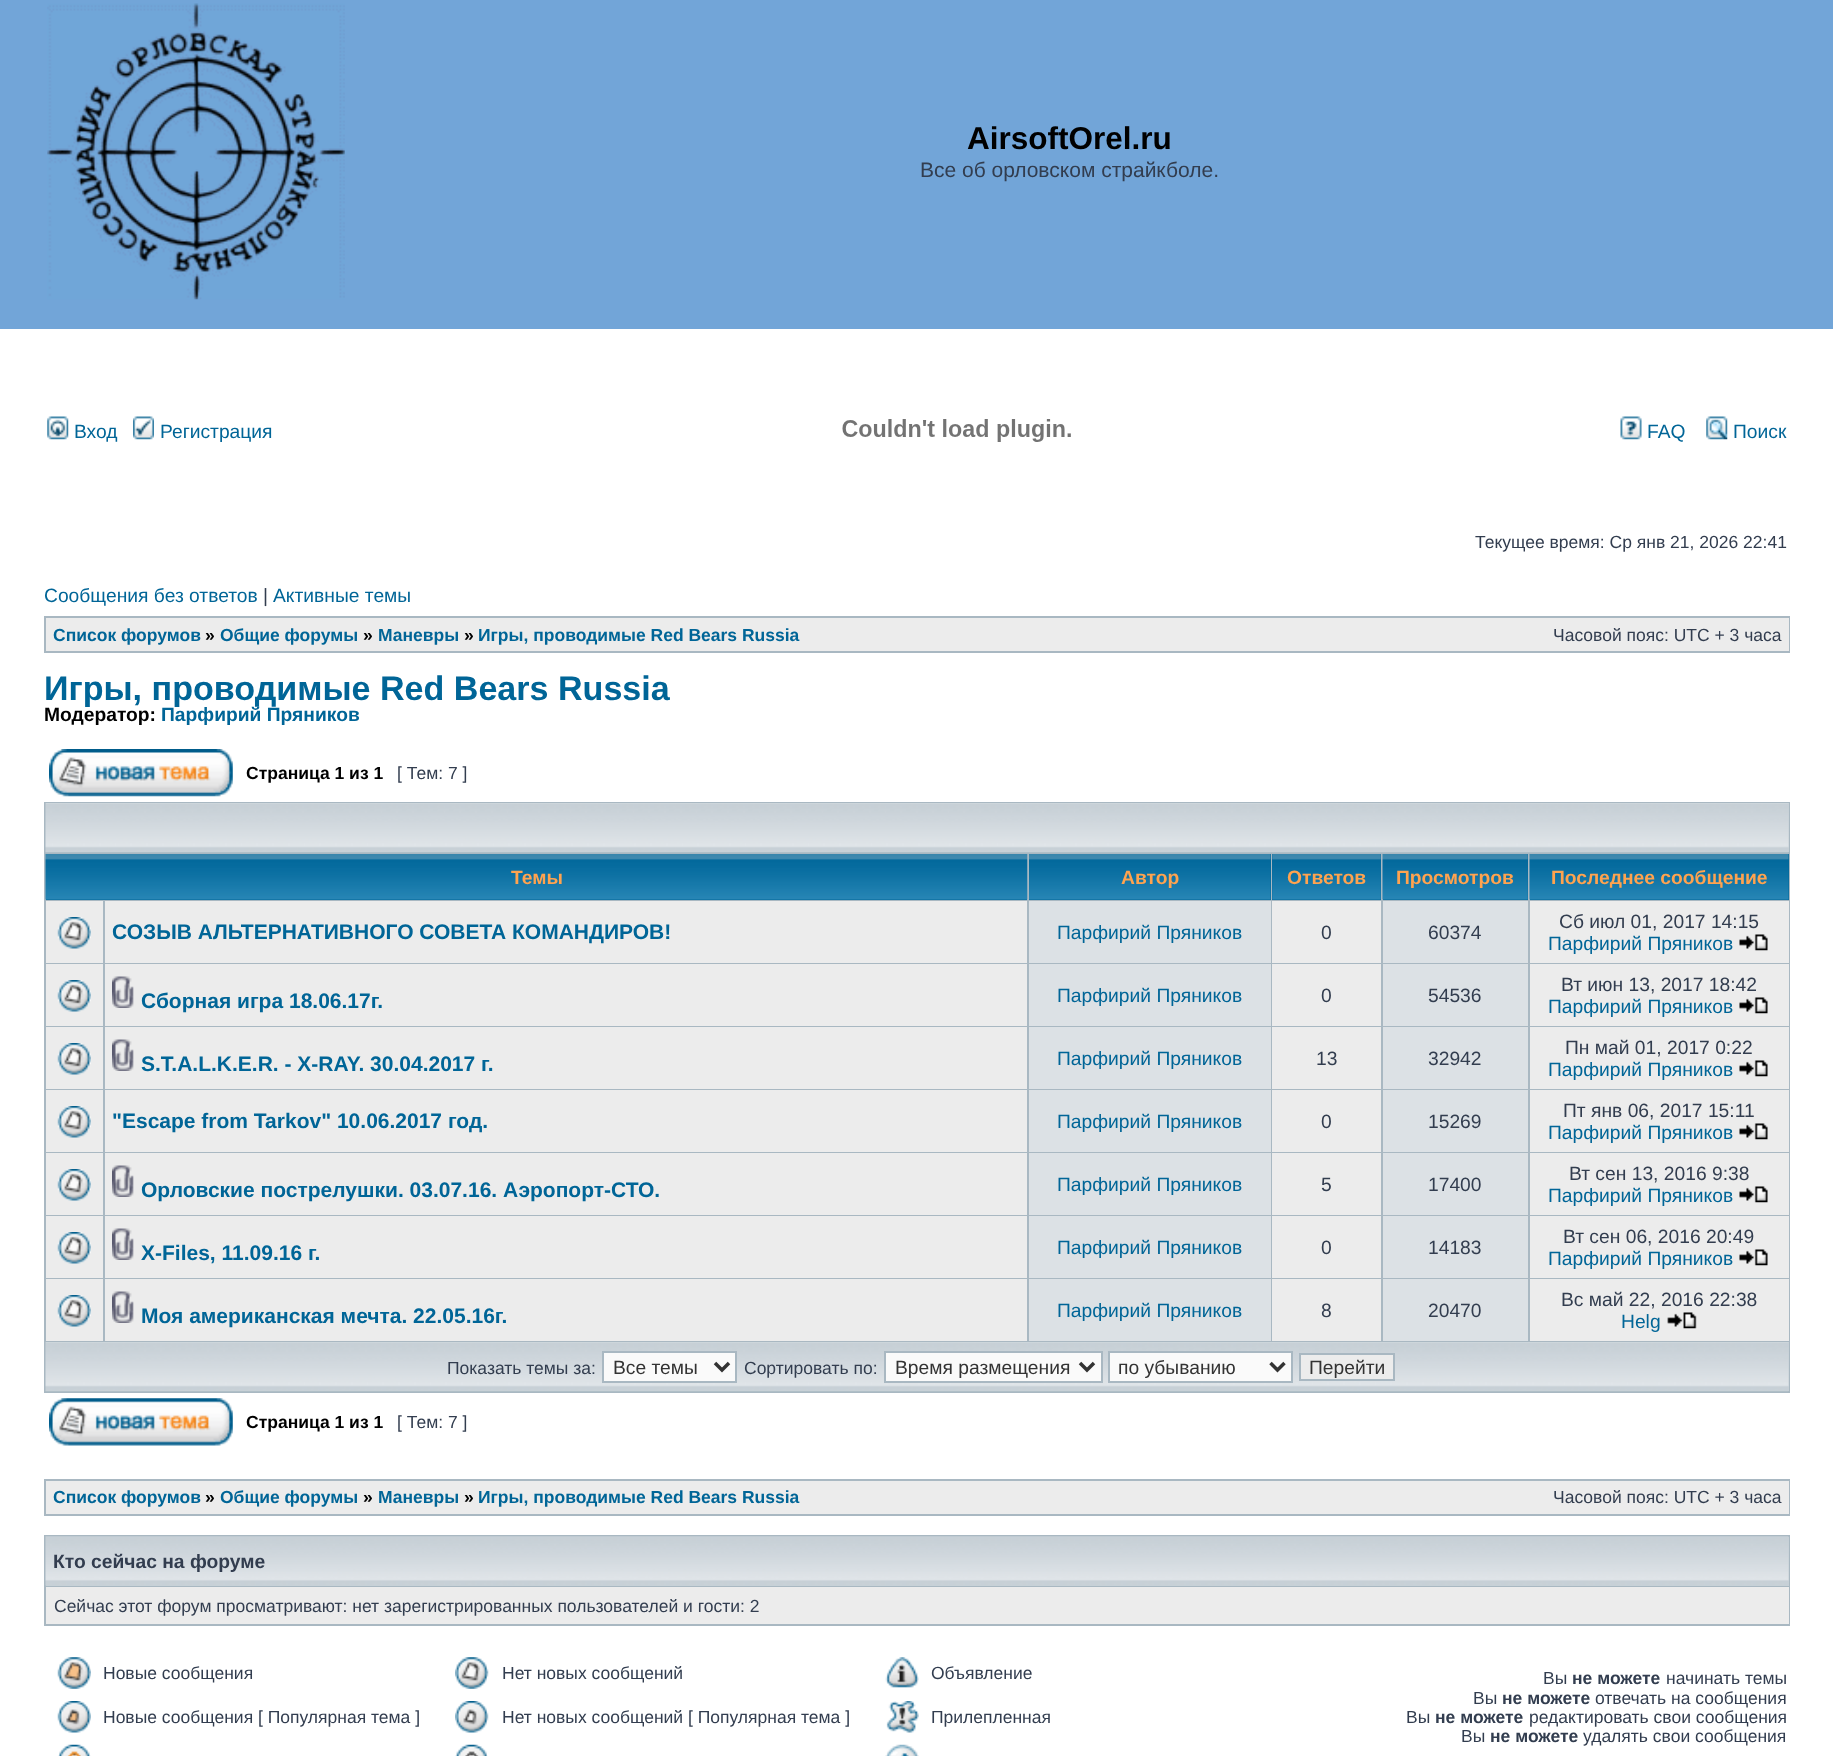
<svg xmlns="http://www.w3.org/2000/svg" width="1833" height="1756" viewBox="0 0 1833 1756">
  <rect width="100%" height="100%" fill="#ffffff"/>
  <rect x="0" y="0" width="1833" height="329" fill="#72a5d8"/>
  <image x="47" y="3" width="298" height="297" href="img1.png"/>
  <text x="967" y="149" font-family="Liberation Sans" font-size="31.5" font-weight="bold" fill="#000000">AirsoftOrel.ru</text>
  <text x="920" y="177" font-family="Liberation Sans" font-size="21" fill="#323d4f">Все об орловском страйкболе.</text>
  <image x="47" y="416" width="22" height="24" href="img2.png"/>
  <text x="74" y="438" font-family="Liberation Sans" font-size="19.25" fill="#006597">Вход</text>
  <image x="133" y="416" width="21" height="24" href="img3.png"/>
  <text x="160" y="438" font-family="Liberation Sans" font-size="19.25" fill="#006597">Регистрация</text>
  <image x="842" y="419" width="229" height="23" href="img4.png"/>
  <image x="1620" y="416" width="22" height="24" href="img5.png"/>
  <text x="1647" y="438" font-family="Liberation Sans" font-size="19.25" fill="#006597">FAQ</text>
  <image x="1706" y="416" width="22" height="24" href="img6.png"/>
  <text x="1733" y="438" font-family="Liberation Sans" font-size="19.25" fill="#006597">Поиск</text>
  <text x="1475" y="548" font-family="Liberation Sans" font-size="17.5" fill="#323d4f">Текущее время: Ср янв 21, 2026 22:41</text>
  <text x="44" y="602" font-family="Liberation Sans" font-size="19.25" fill="#006597">Сообщения без ответов</text>
  <text x="263" y="602" font-family="Liberation Sans" font-size="19.25" fill="#323d4f">|</text>
  <text x="273" y="602" font-family="Liberation Sans" font-size="19.25" fill="#006597">Активные темы</text>
  <rect x="44" y="616" width="1746" height="37" fill="#a9b8c2"/>
  <rect x="46" y="618" width="1743" height="33" fill="#ececec"/>
  <text x="53" y="641" font-family="Liberation Sans" font-size="17.5" font-weight="bold" fill="#006597">Список форумов</text>
  <text x="205" y="641" font-family="Liberation Sans" font-size="17.5" font-weight="bold" fill="#000000">»</text>
  <text x="220" y="641" font-family="Liberation Sans" font-size="17.5" font-weight="bold" fill="#006597">Общие форумы</text>
  <text x="363" y="641" font-family="Liberation Sans" font-size="17.5" font-weight="bold" fill="#000000">»</text>
  <text x="378" y="641" font-family="Liberation Sans" font-size="17.5" font-weight="bold" fill="#006597">Маневры</text>
  <text x="464" y="641" font-family="Liberation Sans" font-size="17.5" font-weight="bold" fill="#000000">»</text>
  <text x="478" y="641" font-family="Liberation Sans" font-size="17.5" font-weight="bold" fill="#006597">Игры, проводимые Red Bears Russia</text>
  <text x="1553" y="641" font-family="Liberation Sans" font-size="17.5" fill="#323d4f">Часовой пояс: UTC + 3 часа</text>
  <text x="44" y="700" font-family="Liberation Sans" font-size="34.1" font-weight="bold" fill="#006597">Игры, проводимые Red Bears Russia</text>
  <text x="44" y="721" font-family="Liberation Sans" font-size="19.25" font-weight="bold" fill="#000000">Модератор:</text>
  <text x="161" y="721" font-family="Liberation Sans" font-size="19.25" font-weight="bold" fill="#006597">Парфирий Пряников</text>
  <image x="49" y="749" width="184" height="48" href="img7.png"/>
  <text x="246" y="779" font-family="Liberation Sans" font-size="17.5" font-weight="bold" fill="#000000">Страница 1 из 1</text>
  <text x="397" y="779" font-family="Liberation Sans" font-size="17.5" fill="#323d4f">[ Тем: 7 ]</text>
  <rect x="44" y="802" width="1746" height="591" fill="#a9b8c2"/>
  <rect x="46" y="803" width="1743" height="49" fill="#c7d0d7"/>
  <image x="45" y="803" width="1744" height="50" href="img8.png"/>
  <rect x="46" y="899" width="981" height="1" fill="#006699"/>
  <image x="45" y="854" width="983" height="46" href="img9.png"/>
  <text x="511" y="884" font-family="Liberation Sans" font-size="19.25" font-weight="bold" fill="#ffa34f">Темы</text>
  <rect x="1029" y="854" width="242" height="46" fill="#006699"/>
  <image x="1029" y="854" width="242" height="46" href="img10.png"/>
  <text x="1121" y="884" font-family="Liberation Sans" font-size="19.25" font-weight="bold" fill="#ffa34f">Автор</text>
  <rect x="1272" y="854" width="109" height="46" fill="#006699"/>
  <image x="1272" y="854" width="109" height="46" href="img11.png"/>
  <text x="1287" y="884" font-family="Liberation Sans" font-size="19.25" font-weight="bold" fill="#ffa34f">Ответов</text>
  <rect x="1383" y="854" width="145" height="46" fill="#006699"/>
  <image x="1382" y="854" width="146" height="46" href="img12.png"/>
  <text x="1396" y="884" font-family="Liberation Sans" font-size="19.25" font-weight="bold" fill="#ffa34f">Просмотров</text>
  <rect x="1530" y="854" width="259" height="46" fill="#006699"/>
  <image x="1529" y="854" width="260" height="46" href="img13.png"/>
  <text x="1551" y="884" font-family="Liberation Sans" font-size="19.25" font-weight="bold" fill="#ffa34f">Последнее сообщение</text>
  <rect x="46" y="901" width="57" height="62" fill="#ececec"/>
  <image x="57" y="917" width="34" height="32" href="img14.png"/>
  <rect x="105" y="901" width="922" height="62" fill="#ececec"/>
  <text x="112" y="939" font-family="Liberation Sans" font-size="21" font-weight="bold" fill="#006597">СОЗЫВ АЛЬТЕРНАТИВНОГО СОВЕТА КОМАНДИРОВ!</text>
  <rect x="1029" y="901" width="242" height="62" fill="#dce1e5"/>
  <text x="1057" y="939" font-family="Liberation Sans" font-size="19.25" fill="#006597">Парфирий Пряников</text>
  <rect x="1272" y="901" width="109" height="62" fill="#ececec"/>
  <text x="1321" y="939" font-family="Liberation Sans" font-size="19.25" fill="#323d4f">0</text>
  <rect x="1383" y="901" width="145" height="62" fill="#dce1e5"/>
  <text x="1428" y="939" font-family="Liberation Sans" font-size="19.25" fill="#323d4f">60374</text>
  <rect x="1530" y="901" width="259" height="62" fill="#ececec"/>
  <text x="1559" y="928" font-family="Liberation Sans" font-size="19.25" fill="#323d4f">Сб июл 01, 2017 14:15</text>
  <text x="1548" y="950" font-family="Liberation Sans" font-size="19.25" fill="#006597">Парфирий Пряников</text>
  <image x="1739" y="934" width="29" height="17" href="img15.png"/>
  <rect x="46" y="964" width="57" height="62" fill="#ececec"/>
  <image x="57" y="980" width="34" height="32" href="img14.png"/>
  <rect x="105" y="964" width="922" height="62" fill="#ececec"/>
  <image x="112" y="976" width="22" height="32" href="img16.png"/>
  <text x="141" y="1008" font-family="Liberation Sans" font-size="21" font-weight="bold" fill="#006597">Сборная игра 18.06.17г.</text>
  <rect x="1029" y="964" width="242" height="62" fill="#dce1e5"/>
  <text x="1057" y="1002" font-family="Liberation Sans" font-size="19.25" fill="#006597">Парфирий Пряников</text>
  <rect x="1272" y="964" width="109" height="62" fill="#ececec"/>
  <text x="1321" y="1002" font-family="Liberation Sans" font-size="19.25" fill="#323d4f">0</text>
  <rect x="1383" y="964" width="145" height="62" fill="#dce1e5"/>
  <text x="1428" y="1002" font-family="Liberation Sans" font-size="19.25" fill="#323d4f">54536</text>
  <rect x="1530" y="964" width="259" height="62" fill="#ececec"/>
  <text x="1561" y="991" font-family="Liberation Sans" font-size="19.25" fill="#323d4f">Вт июн 13, 2017 18:42</text>
  <text x="1548" y="1013" font-family="Liberation Sans" font-size="19.25" fill="#006597">Парфирий Пряников</text>
  <image x="1739" y="997" width="29" height="17" href="img15.png"/>
  <rect x="46" y="1027" width="57" height="62" fill="#ececec"/>
  <image x="57" y="1043" width="34" height="32" href="img14.png"/>
  <rect x="105" y="1027" width="922" height="62" fill="#ececec"/>
  <image x="112" y="1039" width="22" height="32" href="img16.png"/>
  <text x="141" y="1071" font-family="Liberation Sans" font-size="21" font-weight="bold" fill="#006597">S.T.A.L.K.E.R. - X-RAY. 30.04.2017 г.</text>
  <rect x="1029" y="1027" width="242" height="62" fill="#dce1e5"/>
  <text x="1057" y="1065" font-family="Liberation Sans" font-size="19.25" fill="#006597">Парфирий Пряников</text>
  <rect x="1272" y="1027" width="109" height="62" fill="#ececec"/>
  <text x="1316" y="1065" font-family="Liberation Sans" font-size="19.25" fill="#323d4f">13</text>
  <rect x="1383" y="1027" width="145" height="62" fill="#dce1e5"/>
  <text x="1428" y="1065" font-family="Liberation Sans" font-size="19.25" fill="#323d4f">32942</text>
  <rect x="1530" y="1027" width="259" height="62" fill="#ececec"/>
  <text x="1565" y="1054" font-family="Liberation Sans" font-size="19.25" fill="#323d4f">Пн май 01, 2017 0:22</text>
  <text x="1548" y="1076" font-family="Liberation Sans" font-size="19.25" fill="#006597">Парфирий Пряников</text>
  <image x="1739" y="1060" width="29" height="17" href="img15.png"/>
  <rect x="46" y="1090" width="57" height="62" fill="#ececec"/>
  <image x="57" y="1106" width="34" height="32" href="img14.png"/>
  <rect x="105" y="1090" width="922" height="62" fill="#ececec"/>
  <text x="112" y="1128" font-family="Liberation Sans" font-size="21" font-weight="bold" fill="#006597">"Escape from Tarkov" 10.06.2017 год.</text>
  <rect x="1029" y="1090" width="242" height="62" fill="#dce1e5"/>
  <text x="1057" y="1128" font-family="Liberation Sans" font-size="19.25" fill="#006597">Парфирий Пряников</text>
  <rect x="1272" y="1090" width="109" height="62" fill="#ececec"/>
  <text x="1321" y="1128" font-family="Liberation Sans" font-size="19.25" fill="#323d4f">0</text>
  <rect x="1383" y="1090" width="145" height="62" fill="#dce1e5"/>
  <text x="1428" y="1128" font-family="Liberation Sans" font-size="19.25" fill="#323d4f">15269</text>
  <rect x="1530" y="1090" width="259" height="62" fill="#ececec"/>
  <text x="1563" y="1117" font-family="Liberation Sans" font-size="19.25" fill="#323d4f">Пт янв 06, 2017 15:11</text>
  <text x="1548" y="1139" font-family="Liberation Sans" font-size="19.25" fill="#006597">Парфирий Пряников</text>
  <image x="1739" y="1123" width="29" height="17" href="img15.png"/>
  <rect x="46" y="1153" width="57" height="62" fill="#ececec"/>
  <image x="57" y="1169" width="34" height="32" href="img14.png"/>
  <rect x="105" y="1153" width="922" height="62" fill="#ececec"/>
  <image x="112" y="1165" width="22" height="32" href="img16.png"/>
  <text x="141" y="1197" font-family="Liberation Sans" font-size="21" font-weight="bold" fill="#006597">Орловские пострелушки. 03.07.16. Аэропорт-СТО.</text>
  <rect x="1029" y="1153" width="242" height="62" fill="#dce1e5"/>
  <text x="1057" y="1191" font-family="Liberation Sans" font-size="19.25" fill="#006597">Парфирий Пряников</text>
  <rect x="1272" y="1153" width="109" height="62" fill="#ececec"/>
  <text x="1321" y="1191" font-family="Liberation Sans" font-size="19.25" fill="#323d4f">5</text>
  <rect x="1383" y="1153" width="145" height="62" fill="#dce1e5"/>
  <text x="1428" y="1191" font-family="Liberation Sans" font-size="19.25" fill="#323d4f">17400</text>
  <rect x="1530" y="1153" width="259" height="62" fill="#ececec"/>
  <text x="1569" y="1180" font-family="Liberation Sans" font-size="19.25" fill="#323d4f">Вт сен 13, 2016 9:38</text>
  <text x="1548" y="1202" font-family="Liberation Sans" font-size="19.25" fill="#006597">Парфирий Пряников</text>
  <image x="1739" y="1186" width="29" height="17" href="img15.png"/>
  <rect x="46" y="1216" width="57" height="62" fill="#ececec"/>
  <image x="57" y="1232" width="34" height="32" href="img14.png"/>
  <rect x="105" y="1216" width="922" height="62" fill="#ececec"/>
  <image x="112" y="1228" width="22" height="32" href="img16.png"/>
  <text x="141" y="1260" font-family="Liberation Sans" font-size="21" font-weight="bold" fill="#006597">X-Files, 11.09.16 г.</text>
  <rect x="1029" y="1216" width="242" height="62" fill="#dce1e5"/>
  <text x="1057" y="1254" font-family="Liberation Sans" font-size="19.25" fill="#006597">Парфирий Пряников</text>
  <rect x="1272" y="1216" width="109" height="62" fill="#ececec"/>
  <text x="1321" y="1254" font-family="Liberation Sans" font-size="19.25" fill="#323d4f">0</text>
  <rect x="1383" y="1216" width="145" height="62" fill="#dce1e5"/>
  <text x="1428" y="1254" font-family="Liberation Sans" font-size="19.25" fill="#323d4f">14183</text>
  <rect x="1530" y="1216" width="259" height="62" fill="#ececec"/>
  <text x="1563" y="1243" font-family="Liberation Sans" font-size="19.25" fill="#323d4f">Вт сен 06, 2016 20:49</text>
  <text x="1548" y="1265" font-family="Liberation Sans" font-size="19.25" fill="#006597">Парфирий Пряников</text>
  <image x="1739" y="1249" width="29" height="17" href="img15.png"/>
  <rect x="46" y="1279" width="57" height="62" fill="#ececec"/>
  <image x="57" y="1295" width="34" height="32" href="img14.png"/>
  <rect x="105" y="1279" width="922" height="62" fill="#ececec"/>
  <image x="112" y="1291" width="22" height="32" href="img16.png"/>
  <text x="141" y="1323" font-family="Liberation Sans" font-size="21" font-weight="bold" fill="#006597">Моя американская мечта. 22.05.16г.</text>
  <rect x="1029" y="1279" width="242" height="62" fill="#dce1e5"/>
  <text x="1057" y="1317" font-family="Liberation Sans" font-size="19.25" fill="#006597">Парфирий Пряников</text>
  <rect x="1272" y="1279" width="109" height="62" fill="#ececec"/>
  <text x="1321" y="1317" font-family="Liberation Sans" font-size="19.25" fill="#323d4f">8</text>
  <rect x="1383" y="1279" width="145" height="62" fill="#dce1e5"/>
  <text x="1428" y="1317" font-family="Liberation Sans" font-size="19.25" fill="#323d4f">20470</text>
  <rect x="1530" y="1279" width="259" height="62" fill="#ececec"/>
  <text x="1561" y="1306" font-family="Liberation Sans" font-size="19.25" fill="#323d4f">Вс май 22, 2016 22:38</text>
  <text x="1621" y="1328" font-family="Liberation Sans" font-size="19.25" fill="#006597">Helg</text>
  <image x="1667" y="1312" width="30" height="17" href="img17.png"/>
  <rect x="46" y="1342" width="1743" height="49" fill="#c7d0d7"/>
  <image x="45" y="1342" width="1744" height="50" href="img8.png"/>
  <text x="447" y="1374" font-family="Liberation Sans" font-size="17.5" fill="#323d4f">Показать темы за:</text>
  <rect x="603" y="1352" width="133" height="30" fill="#fafafa" stroke="#a9b8c2" stroke-width="2"/>
  <path d="M715 1363L722 1370L729 1363" fill="none" stroke="#333333" stroke-width="3.5"/>
  <text x="613" y="1374" font-family="Liberation Sans" font-size="19.25" fill="#333333">Все темы</text>
  <text x="744" y="1374" font-family="Liberation Sans" font-size="17.5" fill="#323d4f">Сортировать по:</text>
  <rect x="885" y="1352" width="217" height="30" fill="#fafafa" stroke="#a9b8c2" stroke-width="2"/>
  <path d="M1080 1363L1087 1370L1094 1363" fill="none" stroke="#333333" stroke-width="3.5"/>
  <text x="895" y="1374" font-family="Liberation Sans" font-size="19.25" fill="#333333">Время размещения</text>
  <rect x="1109" y="1352" width="183" height="30" fill="#fafafa" stroke="#a9b8c2" stroke-width="2"/>
  <path d="M1270.5 1363L1277.5 1370L1284.5 1363" fill="none" stroke="#333333" stroke-width="3.5"/>
  <text x="1118" y="1374" font-family="Liberation Sans" font-size="19.25" fill="#333333">по убыванию</text>
  <rect x="1300" y="1354" width="94" height="26" fill="#ececec" stroke="#a9b8c2" stroke-width="2"/>
  <text x="1309" y="1374" font-family="Liberation Sans" font-size="19.25" fill="#333333">Перейти</text>
  <image x="49" y="1398" width="184" height="48" href="img18.png"/>
  <text x="246" y="1428" font-family="Liberation Sans" font-size="17.5" font-weight="bold" fill="#000000">Страница 1 из 1</text>
  <text x="397" y="1428" font-family="Liberation Sans" font-size="17.5" fill="#323d4f">[ Тем: 7 ]</text>
  <rect x="44" y="1479" width="1746" height="37" fill="#a9b8c2"/>
  <rect x="46" y="1481" width="1743" height="33" fill="#ececec"/>
  <text x="53" y="1503" font-family="Liberation Sans" font-size="17.5" font-weight="bold" fill="#006597">Список форумов</text>
  <text x="205" y="1503" font-family="Liberation Sans" font-size="17.5" font-weight="bold" fill="#000000">»</text>
  <text x="220" y="1503" font-family="Liberation Sans" font-size="17.5" font-weight="bold" fill="#006597">Общие форумы</text>
  <text x="363" y="1503" font-family="Liberation Sans" font-size="17.5" font-weight="bold" fill="#000000">»</text>
  <text x="378" y="1503" font-family="Liberation Sans" font-size="17.5" font-weight="bold" fill="#006597">Маневры</text>
  <text x="464" y="1503" font-family="Liberation Sans" font-size="17.5" font-weight="bold" fill="#000000">»</text>
  <text x="478" y="1503" font-family="Liberation Sans" font-size="17.5" font-weight="bold" fill="#006597">Игры, проводимые Red Bears Russia</text>
  <text x="1553" y="1503" font-family="Liberation Sans" font-size="17.5" fill="#323d4f">Часовой пояс: UTC + 3 часа</text>
  <rect x="44" y="1535" width="1746" height="91" fill="#a9b8c2"/>
  <rect x="46" y="1537" width="1743" height="49" fill="#c7d0d7"/>
  <image x="45" y="1536" width="1744" height="50" href="img19.png"/>
  <text x="53" y="1568" font-family="Liberation Sans" font-size="19.25" font-weight="bold" fill="#323d4f">Кто сейчас на форуме</text>
  <rect x="46" y="1587" width="1743" height="37" fill="#ececec"/>
  <text x="54" y="1612" font-family="Liberation Sans" font-size="17.5" fill="#323d4f">Сейчас этот форум просматривают: нет зарегистрированных пользователей и гости: 2</text>
  <image x="57" y="1657" width="34" height="32" href="img20.png"/>
  <text x="103" y="1679" font-family="Liberation Sans" font-size="17.5" fill="#323d4f">Новые сообщения</text>
  <image x="455" y="1657" width="34" height="32" href="img21.png"/>
  <text x="502" y="1679" font-family="Liberation Sans" font-size="17.5" fill="#323d4f">Нет новых сообщений</text>
  <image x="885" y="1657" width="34" height="31" href="img22.png"/>
  <text x="931" y="1679" font-family="Liberation Sans" font-size="17.5" fill="#323d4f">Объявление</text>
  <image x="57" y="1701" width="34" height="32" href="img23.png"/>
  <text x="103" y="1723" font-family="Liberation Sans" font-size="17.5" fill="#323d4f">Новые сообщения [ Популярная тема ]</text>
  <image x="455" y="1701" width="34" height="32" href="img24.png"/>
  <text x="502" y="1723" font-family="Liberation Sans" font-size="17.5" fill="#323d4f">Нет новых сообщений [ Популярная тема ]</text>
  <image x="886" y="1701" width="33" height="32" href="img25.png"/>
  <text x="931" y="1723" font-family="Liberation Sans" font-size="17.5" fill="#323d4f">Прилепленная</text>
  <image x="58" y="1744" width="33" height="12" href="img26.png"/>
  <image x="455" y="1744" width="33" height="12" href="img27.png"/>
  <image x="885" y="1744" width="34" height="12" href="img28.png"/>
  <text x="1543" y="1684" font-family="Liberation Sans" font-size="17.5" fill="#323d4f">Вы</text>
  <text x="1572" y="1684" font-family="Liberation Sans" font-size="17.5" font-weight="bold" fill="#323d4f">не можете</text>
  <text x="1666" y="1684" font-family="Liberation Sans" font-size="17.5" fill="#323d4f">начинать темы</text>
  <text x="1473" y="1704" font-family="Liberation Sans" font-size="17.5" fill="#323d4f">Вы</text>
  <text x="1502" y="1704" font-family="Liberation Sans" font-size="17.5" font-weight="bold" fill="#323d4f">не можете</text>
  <text x="1595" y="1704" font-family="Liberation Sans" font-size="17.5" fill="#323d4f">отвечать на сообщения</text>
  <text x="1406" y="1723" font-family="Liberation Sans" font-size="17.5" fill="#323d4f">Вы</text>
  <text x="1435" y="1723" font-family="Liberation Sans" font-size="17.5" font-weight="bold" fill="#323d4f">не можете</text>
  <text x="1529" y="1723" font-family="Liberation Sans" font-size="17.5" fill="#323d4f">редактировать свои сообщения</text>
  <text x="1461" y="1742" font-family="Liberation Sans" font-size="17.5" fill="#323d4f">Вы</text>
  <text x="1490" y="1742" font-family="Liberation Sans" font-size="17.5" font-weight="bold" fill="#323d4f">не можете</text>
  <text x="1583" y="1742" font-family="Liberation Sans" font-size="17.5" fill="#323d4f">удалять свои сообщения</text>
</svg>
